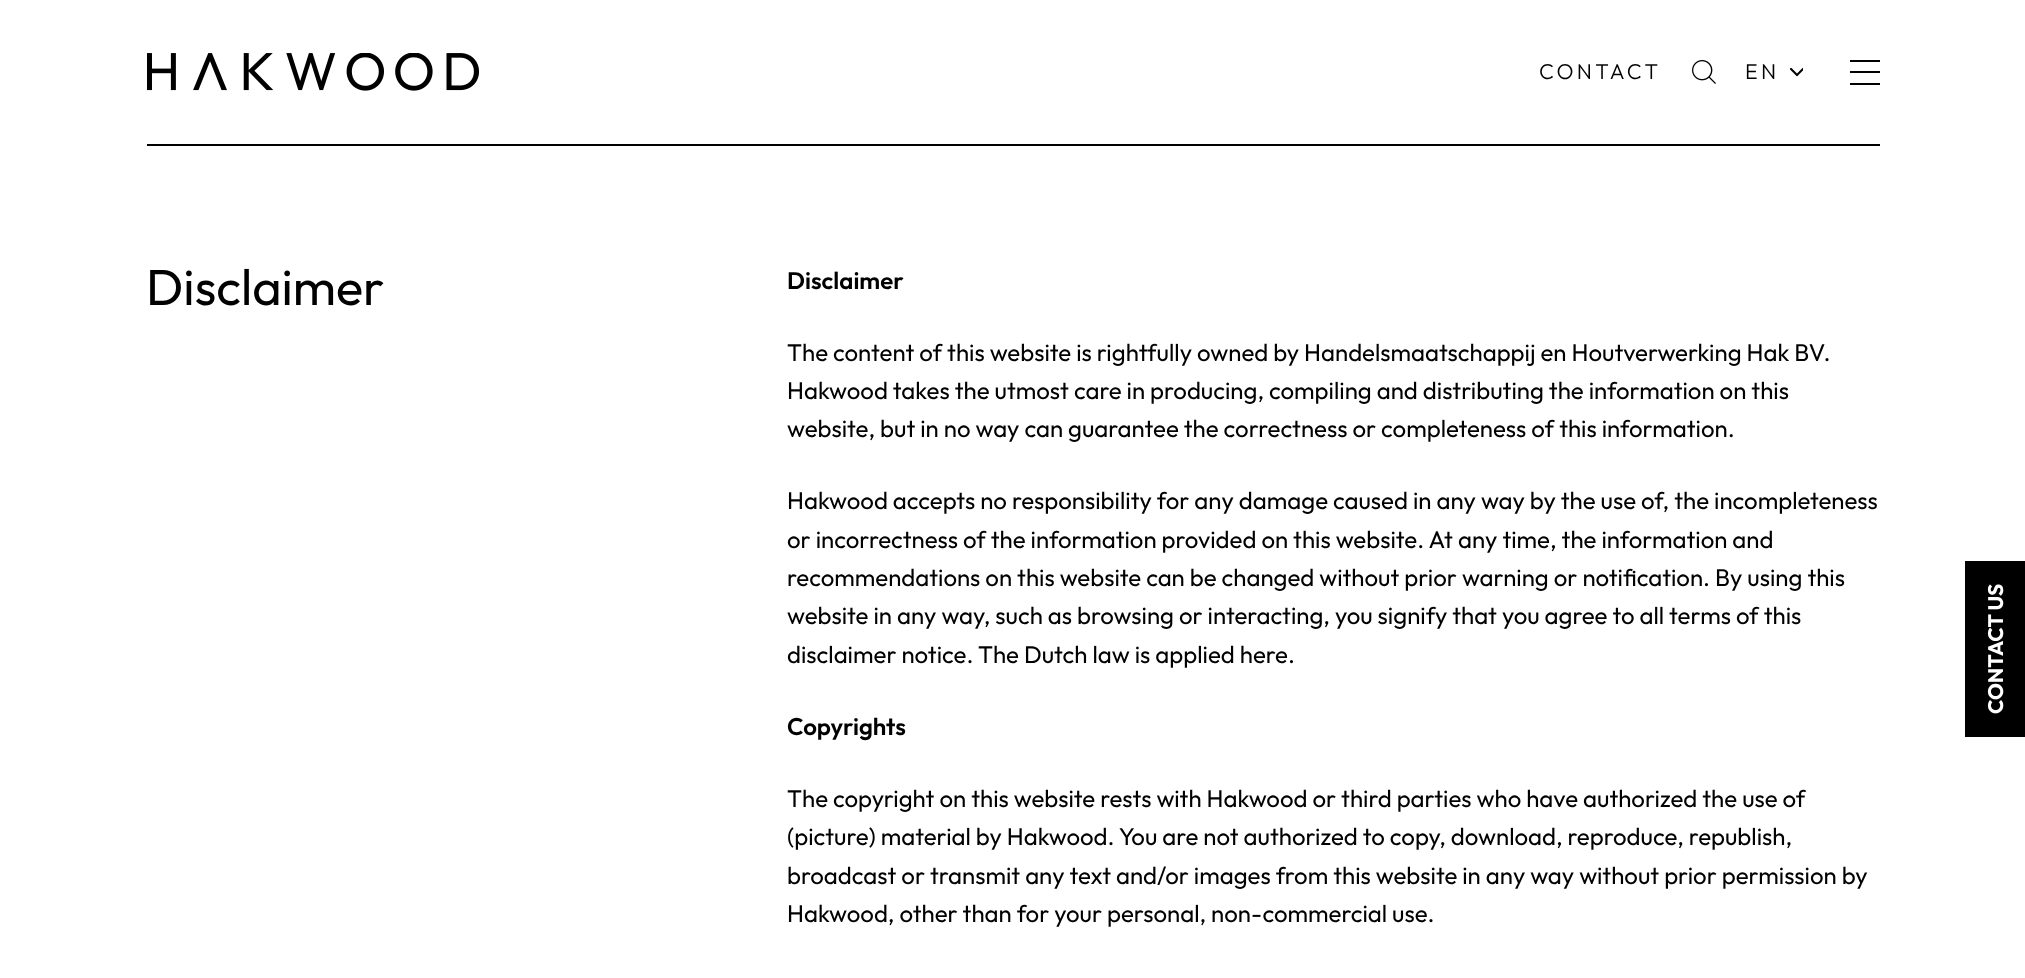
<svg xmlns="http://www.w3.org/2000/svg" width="2025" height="978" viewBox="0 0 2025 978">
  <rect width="100%" height="100%" fill="#ffffff"/>
  <rect x="147" y="144" width="1733" height="2" fill="#000000"/>
  <image x="147" y="53" width="332" height="38" href="img1.png"/>
  <text x="1539" y="79" font-family="'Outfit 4'" font-size="21.5" font-weight="100" letter-spacing="3.25" fill="#000000">CONTACT</text>
  <image x="1692" y="60" width="24" height="24" href="img2.png"/>
  <text x="1745" y="79" font-family="'Outfit 4'" font-size="21.5" font-weight="100" letter-spacing="3.25" fill="#000000">EN</text>
  <image x="1790" y="68" width="13" height="9" href="img3.png"/>
  <rect x="1850" y="60" width="30" height="2" fill="#000000"/>
  <rect x="1850" y="71" width="30" height="2" fill="#000000"/>
  <rect x="1850" y="83" width="30" height="2" fill="#000000"/>
  <text x="146" y="305" font-family="Outfit" font-size="50.5" font-weight="100" fill="#000000">Disclaimer</text>
  <text x="787" y="289" font-family="'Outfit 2'" font-size="24" font-weight="100" fill="#000000">Disclaimer</text>
  <text x="787" y="361" font-family="Outfit" font-size="24" font-weight="100" fill="#000000">The content of this website is rightfully owned by Handelsmaatschappij en Houtverwerking Hak BV.</text>
  <text x="787" y="399" font-family="Outfit" font-size="24" font-weight="100" fill="#000000">Hakwood takes the utmost care in producing, compiling and distributing the information on this</text>
  <text x="787" y="437" font-family="Outfit" font-size="24" font-weight="100" fill="#000000">website, but in no way can guarantee the correctness or completeness of this information.</text>
  <text x="787" y="509" font-family="Outfit" font-size="24" font-weight="100" fill="#000000">Hakwood accepts no responsibility for any damage caused in any way by the use of, the incompleteness</text>
  <text x="787" y="548" font-family="Outfit" font-size="24" font-weight="100" fill="#000000">or incorrectness of the information provided on this website. At any time, the information and</text>
  <text x="787" y="586" font-family="Outfit" font-size="24" font-weight="100" fill="#000000">recommendations on this website can be changed without prior warning or notification. By using this</text>
  <text x="787" y="624" font-family="Outfit" font-size="24" font-weight="100" fill="#000000">website in any way, such as browsing or interacting, you signify that you agree to all terms of this</text>
  <text x="787" y="663" font-family="Outfit" font-size="24" font-weight="100" fill="#000000">disclaimer notice. The Dutch law is applied here.</text>
  <text x="787" y="735" font-family="'Outfit 2'" font-size="24" font-weight="100" fill="#000000">Copyrights</text>
  <text x="787" y="807" font-family="Outfit" font-size="24" font-weight="100" fill="#000000">The copyright on this website rests with Hakwood or third parties who have authorized the use of</text>
  <text x="787" y="845" font-family="Outfit" font-size="24" font-weight="100" fill="#000000">(picture) material by Hakwood. You are not authorized to copy, download, reproduce, republish,</text>
  <text x="787" y="884" font-family="Outfit" font-size="24" font-weight="100" fill="#000000">broadcast or transmit any text and/or images from this website in any way without prior permission by</text>
  <text x="787" y="922" font-family="Outfit" font-size="24" font-weight="100" fill="#000000">Hakwood, other than for your personal, non-commercial use.</text>
  <rect x="1965" y="561" width="60" height="176" fill="#000000"/>
  <text x="2003" y="714" transform="rotate(-90 2003 714)" font-family="'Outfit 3'" font-size="21" font-weight="100" fill="#ffffff">CONTACT US</text>
</svg>
